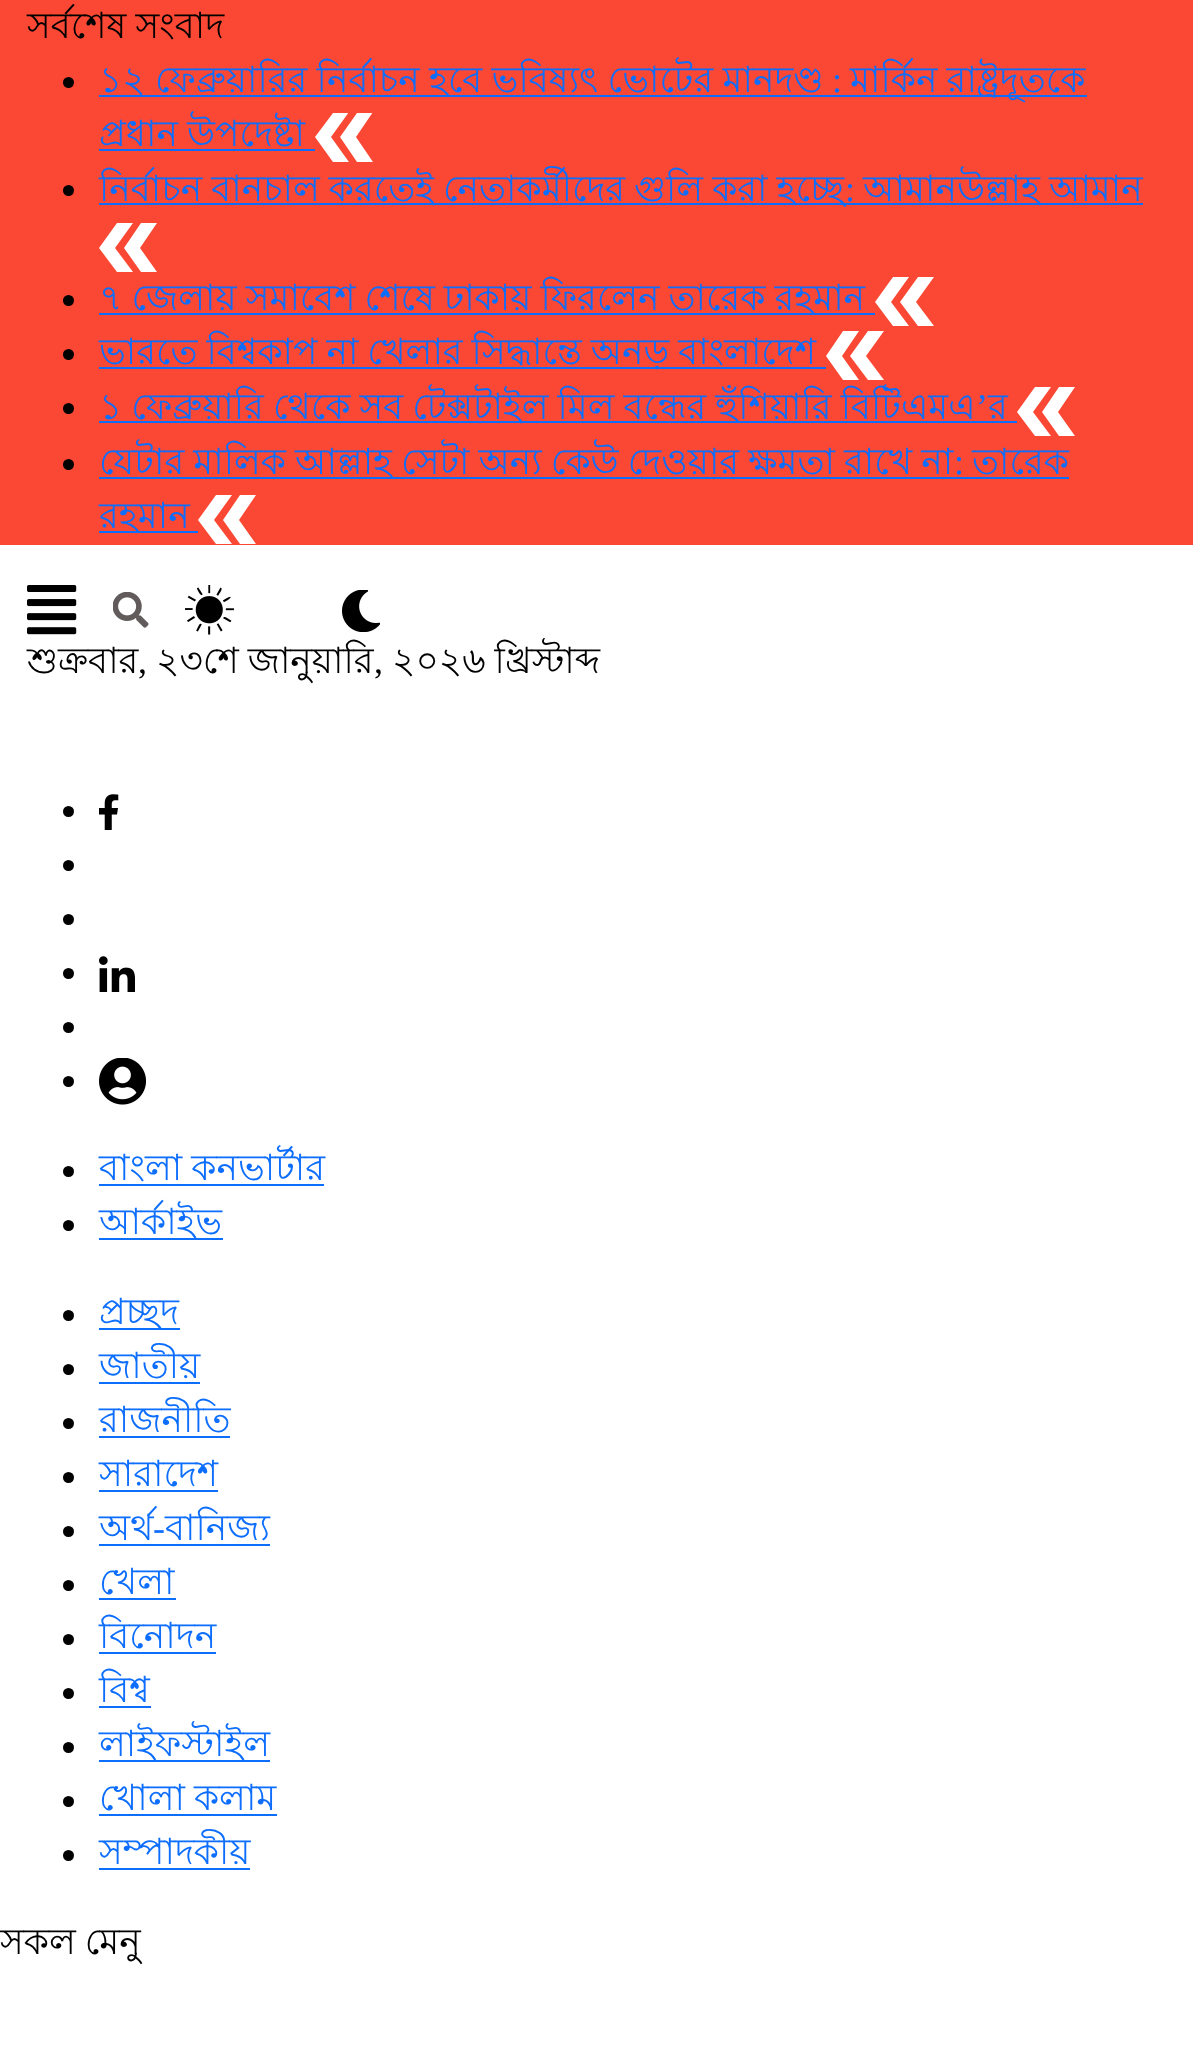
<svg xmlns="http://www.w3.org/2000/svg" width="1193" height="2051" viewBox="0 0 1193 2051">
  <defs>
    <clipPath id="clip1"><rect x="315" y="113" width="59" height="49"/></clipPath>
  </defs>
  <rect width="100%" height="100%" fill="#ffffff"/>
  <rect x="0" y="0" width="1193" height="545" fill="#fb4834"/>
  <text x="27" y="38" word-spacing="-1" font-family="Lohit Bengali" font-size="36" fill="#000000">সর্বশেষ সংবাদ</text>
  <circle cx="68.5" cy="82.5" r="5.5" fill="#000000"/>
  <rect x="99" y="95" width="988" height="2" fill="#0d6efd"/>
  <text x="99" y="92" word-spacing="-0.75" font-family="Lohit Bengali" font-size="36" fill="#0d6efd">১২ ফেব্রুয়ারির নির্বাচন হবে ভবিষ্যৎ ভোটের মানদণ্ড</text>
  <text x="832" y="92" font-family="Liberation Serif" font-size="36" fill="#0d6efd">:</text>
  <text x="850" y="92" word-spacing="-0.75" font-family="Lohit Bengali" font-size="36" fill="#0d6efd">মার্কিন রাষ্ট্রদূতকে</text>
  <text x="99" y="146" word-spacing="-1" font-family="Lohit Bengali" font-size="36" fill="#0d6efd">প্রধান উপদেষ্টা</text>
  <rect x="99" y="149" width="216" height="2" fill="#0d6efd"/>
  <g clip-path="url(#clip1)">
    <path d="M333 162H349L331 137L349 112L333 113L315 137Z" fill="#ffffff"/>
    <path d="M357 162H373L356 137L373 112L357 113L340 137Z" fill="#ffffff"/>
  </g>
  <circle cx="68.5" cy="190.5" r="5.5" fill="#000000"/>
  <rect x="99" y="203" width="1044" height="2" fill="#0d6efd"/>
  <text x="99" y="201" word-spacing="-1" font-family="Lohit Bengali" font-size="36" fill="#0d6efd">নির্বাচন বানচাল করতেই নেতাকর্মীদের গুলি করা হচ্ছে</text>
  <text x="845" y="201" font-family="Liberation Serif" font-size="36" fill="#0d6efd">:</text>
  <text x="863" y="201" word-spacing="-1" font-family="Lohit Bengali" font-size="36" fill="#0d6efd">আমানউল্লাহ আমান</text>
  <path d="M117 272H133L115 248L133 223H117L99 248Z" fill="#ffffff"/>
  <path d="M141 272H157L140 248L157 223H141L124 248Z" fill="#ffffff"/>
  <circle cx="68.5" cy="300.5" r="5.5" fill="#000000"/>
  <rect x="99" y="313" width="776" height="2" fill="#0d6efd"/>
  <text x="99" y="310" word-spacing="-1" font-family="Lohit Bengali" font-size="36" fill="#0d6efd">৭ জেলায় সমাবেশ শেষে ঢাকায় ফিরলেন তারেক রহমান</text>
  <path d="M893 326H909L891 302L909 277H893L875 302Z" fill="#ffffff"/>
  <path d="M918 326H934L916 302L934 277H918L900 302Z" fill="#ffffff"/>
  <circle cx="68.5" cy="354.5" r="5.5" fill="#000000"/>
  <rect x="99" y="367" width="727" height="2" fill="#0d6efd"/>
  <text x="99" y="364" word-spacing="-1" font-family="Lohit Bengali" font-size="36" fill="#0d6efd">ভারতে বিশ্বকাপ না খেলার সিদ্ধান্তে অনড় বাংলাদেশ</text>
  <path d="M843 380H859L842 356L859 331H843L826 356Z" fill="#ffffff"/>
  <path d="M868 380H884L866 356L884 331H868L850 356Z" fill="#ffffff"/>
  <circle cx="68.5" cy="408.5" r="5.5" fill="#000000"/>
  <rect x="99" y="421" width="918" height="2" fill="#0d6efd"/>
  <text x="99" y="419" word-spacing="-1" font-family="Lohit Bengali" font-size="36" fill="#0d6efd">১ ফেব্রুয়ারি থেকে সব টেক্সটাইল মিল বন্ধের হুঁশিয়ারি বিটিএমএ</text>
  <text x="976" y="419" font-family="Liberation Serif" font-size="36" fill="#0d6efd">’</text>
  <text x="988" y="419" font-family="Lohit Bengali" font-size="36" fill="#0d6efd">র</text>
  <path d="M1035 436H1051L1033 412L1051 387H1035L1017 412Z" fill="#ffffff"/>
  <path d="M1059 436H1075L1058 412L1075 387H1059L1042 412Z" fill="#ffffff"/>
  <circle cx="68.5" cy="464.5" r="5.5" fill="#000000"/>
  <rect x="99" y="477" width="970" height="2" fill="#0d6efd"/>
  <text x="99" y="474" word-spacing="-0.9" font-family="Lohit Bengali" font-size="36" fill="#0d6efd">যেটার মালিক আল্লাহ সেটা অন্য কেউ দেওয়ার ক্ষমতা রাখে না</text>
  <text x="954" y="474" font-family="Liberation Serif" font-size="36" fill="#0d6efd">:</text>
  <text x="972" y="474" font-family="Lohit Bengali" font-size="36" fill="#0d6efd">তারেক</text>
  <rect x="99" y="531" width="99" height="2" fill="#0d6efd"/>
  <text x="99" y="528" font-family="Lohit Bengali" font-size="36" fill="#0d6efd">রহমান</text>
  <path d="M216 544H232L214 520L232 495H216L198 520Z" fill="#ffffff"/>
  <path d="M240 544H256L239 520L256 495H240L223 520Z" fill="#ffffff"/>
  <image x="27" y="585" width="50" height="50" href="img1.png"/>
  <image x="113" y="592" width="36" height="36" href="img2.png"/>
  <image x="185" y="585" width="49" height="50" href="img3.png"/>
  <image x="342" y="590" width="38" height="42" href="img4.png"/>
  <text x="27" y="673" font-family="Lohit Bengali" font-size="36" fill="#000000">শুক্রবার</text>
  <text x="138" y="673" font-family="Liberation Serif" font-size="36" fill="#000000">,</text>
  <text x="156" y="673" word-spacing="-1" font-family="Lohit Bengali" font-size="36" fill="#000000">২৩শে জানুয়ারি</text>
  <text x="374" y="673" font-family="Liberation Serif" font-size="36" fill="#000000">,</text>
  <text x="392" y="673" word-spacing="-1" font-family="Lohit Bengali" font-size="36" fill="#000000">২০২৬ খ্রিস্টাব্দ</text>
  <circle cx="68.5" cy="811.5" r="5.5" fill="#000000"/>
  <image x="99" y="794" width="20" height="36" href="img5.png"/>
  <circle cx="68.5" cy="865.5" r="5.5" fill="#000000"/>
  <circle cx="68.5" cy="919.5" r="5.5" fill="#000000"/>
  <circle cx="68.5" cy="973.5" r="5.5" fill="#000000"/>
  <image x="99" y="956" width="36" height="36" href="img6.png"/>
  <circle cx="68.5" cy="1027.5" r="5.5" fill="#000000"/>
  <circle cx="68.5" cy="1081.5" r="5.5" fill="#000000"/>
  <image x="99" y="1058" width="47" height="47" href="img7.png"/>
  <circle cx="68.5" cy="1171.5" r="5.5" fill="#000000"/>
  <text x="99" y="1180" word-spacing="-1" font-family="Lohit Bengali" font-size="36" fill="#0d6efd">বাংলা কনভার্টার</text>
  <rect x="99" y="1184" width="225" height="2" fill="#0d6efd"/>
  <circle cx="68.5" cy="1225.5" r="5.5" fill="#000000"/>
  <rect x="99" y="1238" width="124" height="2" fill="#0d6efd"/>
  <text x="99" y="1234" font-family="Lohit Bengali" font-size="36" fill="#0d6efd">আর্কাইভ</text>
  <circle cx="68.5" cy="1315.5" r="5.5" fill="#000000"/>
  <rect x="99" y="1328" width="81" height="2" fill="#0d6efd"/>
  <text x="99" y="1324" font-family="Lohit Bengali" font-size="36" fill="#0d6efd">প্রচ্ছদ</text>
  <circle cx="68.5" cy="1369.5" r="5.5" fill="#000000"/>
  <text x="99" y="1378" font-family="Lohit Bengali" font-size="36" fill="#0d6efd">জাতীয়</text>
  <rect x="99" y="1382" width="101" height="2" fill="#0d6efd"/>
  <circle cx="68.5" cy="1423.5" r="5.5" fill="#000000"/>
  <text x="99" y="1432" font-family="Lohit Bengali" font-size="36" fill="#0d6efd">রাজনীতি</text>
  <rect x="99" y="1436" width="131" height="2" fill="#0d6efd"/>
  <circle cx="68.5" cy="1477.5" r="5.5" fill="#000000"/>
  <text x="99" y="1486" font-family="Lohit Bengali" font-size="36" fill="#0d6efd">সারাদেশ</text>
  <rect x="99" y="1490" width="119" height="2" fill="#0d6efd"/>
  <circle cx="68.5" cy="1531.5" r="5.5" fill="#000000"/>
  <text x="99" y="1540" font-family="Lohit Bengali" font-size="36" fill="#0d6efd">অর্থ</text>
  <text x="153" y="1540" font-family="Liberation Serif" font-size="36" fill="#0d6efd">-</text>
  <rect x="99" y="1544" width="171" height="2" fill="#0d6efd"/>
  <text x="165" y="1540" font-family="Lohit Bengali" font-size="36" fill="#0d6efd">বানিজ্য</text>
  <circle cx="68.5" cy="1585.5" r="5.5" fill="#000000"/>
  <text x="99" y="1594" font-family="Lohit Bengali" font-size="36" fill="#0d6efd">খেলা</text>
  <rect x="99" y="1598" width="77" height="2" fill="#0d6efd"/>
  <circle cx="68.5" cy="1639.5" r="5.5" fill="#000000"/>
  <text x="99" y="1648" font-family="Lohit Bengali" font-size="36" fill="#0d6efd">বিনোদন</text>
  <rect x="99" y="1652" width="117" height="2" fill="#0d6efd"/>
  <circle cx="68.5" cy="1693.5" r="5.5" fill="#000000"/>
  <text x="99" y="1702" font-family="Lohit Bengali" font-size="36" fill="#0d6efd">বিশ্ব</text>
  <rect x="99" y="1706" width="52" height="2" fill="#0d6efd"/>
  <circle cx="68.5" cy="1747.5" r="5.5" fill="#000000"/>
  <rect x="99" y="1760" width="171" height="2" fill="#0d6efd"/>
  <text x="99" y="1756" font-family="Lohit Bengali" font-size="36" fill="#0d6efd">লাইফস্টাইল</text>
  <circle cx="68.5" cy="1801.5" r="5.5" fill="#000000"/>
  <text x="99" y="1810" word-spacing="-1" font-family="Lohit Bengali" font-size="36" fill="#0d6efd">খোলা কলাম</text>
  <rect x="99" y="1814" width="178" height="2" fill="#0d6efd"/>
  <circle cx="68.5" cy="1855.5" r="5.5" fill="#000000"/>
  <text x="99" y="1864" font-family="Lohit Bengali" font-size="36" fill="#0d6efd">সম্পাদকীয়</text>
  <rect x="99" y="1868" width="151" height="2" fill="#0d6efd"/>
  <text x="0" y="1954" word-spacing="-1" font-family="Lohit Bengali" font-size="36" fill="#000000">সকল মেনু</text>
</svg>
